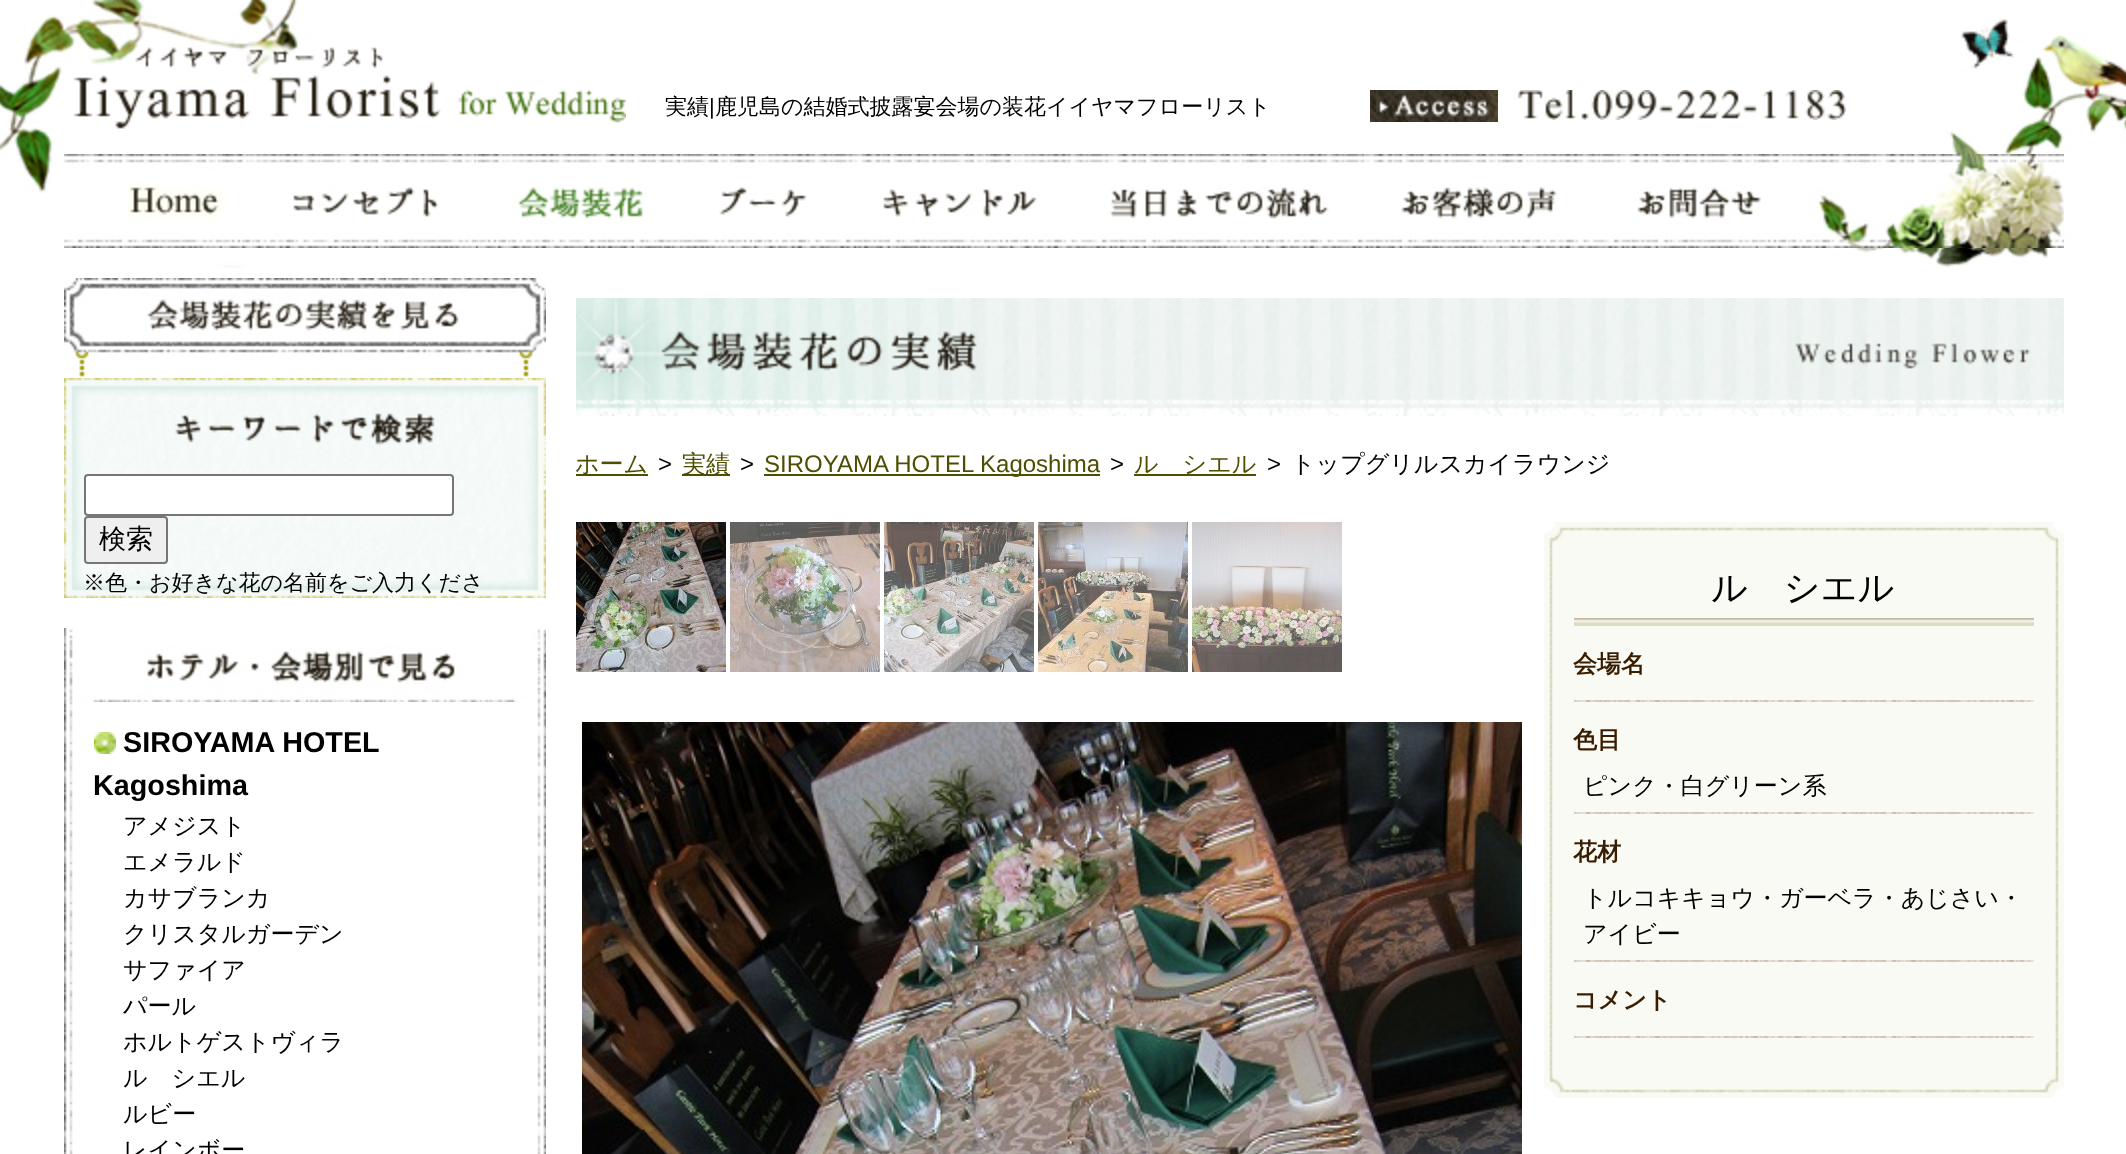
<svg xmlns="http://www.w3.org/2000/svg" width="2126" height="1154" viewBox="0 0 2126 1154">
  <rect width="100%" height="100%" fill="#ffffff"/>
  <image x="0" y="0" width="2126" height="268" href="img1.png"/>
  <image x="73" y="41" width="553" height="88" href="img2.png"/>
  <text x="665" y="114" font-family="WenQuanYi Zen Hei" font-size="22" font-weight="500" fill="#000000">実績</text>
  <text x="709" y="114" font-family="Liberation Sans" font-size="22" fill="#000000">|</text>
  <text x="715" y="114" font-family="WenQuanYi Zen Hei" font-size="22" font-weight="500" fill="#000000">鹿児島の結婚式披露宴会場の装花イイヤマフローリスト</text>
  <image x="1370" y="90" width="128" height="32" href="img3.png"/>
  <image x="1518" y="90" width="328" height="30" href="img4.png"/>
  <image x="64" y="154" width="2000" height="94" href="img5.png"/>
  <image x="127" y="181" width="131" height="67" href="img6.png"/>
  <image x="258" y="154" width="218" height="94" href="img7.png"/>
  <image x="476" y="154" width="204" height="94" href="img8.png"/>
  <image x="680" y="154" width="127" height="94" href="img9.png"/>
  <image x="883" y="154" width="187" height="63" href="img10.png"/>
  <image x="1070" y="154" width="294" height="65" href="img11.png"/>
  <image x="1364" y="154" width="236" height="65" href="img12.png"/>
  <image x="1600" y="154" width="161" height="65" href="img13.png"/>
  <image x="64" y="278" width="482" height="99" href="img14.png"/>
  <image x="64" y="378" width="482" height="76" href="img15.png"/>
  <image x="64" y="454" width="482" height="144" href="img16.png"/>
  <rect x="85" y="475" width="368" height="40" rx="3" fill="#ffffff" stroke="#767676" stroke-width="2"/>
  <rect x="85" y="517" width="82" height="46" rx="3" fill="#efefef" stroke="#767676" stroke-width="2"/>
  <text x="99" y="548" font-family="WenQuanYi Zen Hei" font-size="27" font-weight="500" fill="#000000">検索</text>
  <text x="83" y="590" font-family="WenQuanYi Zen Hei" font-size="22" font-weight="500" fill="#000000">※色・お好きな花の名前をご入力くださ</text>
  <image x="64" y="628" width="482" height="74" href="img17.png"/>
  <image x="64" y="702" width="482" height="452" href="img18.png"/>
  <image x="94" y="732" width="22" height="22" href="img19.png"/>
  <text x="123" y="752" font-family="Liberation Sans" font-size="28.75" font-weight="bold" fill="#000000">SIROYAMA HOTEL</text>
  <text x="93" y="795" font-family="Liberation Sans" font-size="28.75" font-weight="bold" fill="#000000">Kagoshima</text>
  <text x="123" y="834" font-family="WenQuanYi Zen Hei" font-size="24" font-weight="500" fill="#000000">アメジスト</text>
  <text x="123" y="870" font-family="WenQuanYi Zen Hei" font-size="24" font-weight="500" fill="#000000">エメラルド</text>
  <text x="123" y="906" font-family="WenQuanYi Zen Hei" font-size="24" font-weight="500" fill="#000000">カサブランカ</text>
  <text x="123" y="942" font-family="WenQuanYi Zen Hei" font-size="24" font-weight="500" fill="#000000">クリスタルガーデン</text>
  <text x="123" y="978" font-family="WenQuanYi Zen Hei" font-size="24" font-weight="500" fill="#000000">サファイア</text>
  <text x="123" y="1014" font-family="WenQuanYi Zen Hei" font-size="24" font-weight="500" fill="#000000">パール</text>
  <text x="123" y="1050" font-family="WenQuanYi Zen Hei" font-size="24" font-weight="500" fill="#000000">ホルトゲストヴィラ</text>
  <text x="123" y="1086" font-family="WenQuanYi Zen Hei" font-size="24" font-weight="500" fill="#000000">ル　シエル</text>
  <text x="123" y="1122" font-family="WenQuanYi Zen Hei" font-size="24" font-weight="500" fill="#000000">ルビー</text>
  <text x="123" y="1158" font-family="WenQuanYi Zen Hei" font-size="24" font-weight="500" fill="#000000">レインボー</text>
  <image x="576" y="298" width="1488" height="118" href="img20.png"/>
  <rect x="576" y="474" width="72" height="2" fill="#4e4e00"/>
  <text x="575" y="472" font-family="WenQuanYi Zen Hei" font-size="24" font-weight="500" fill="#4e4e00">ホーム</text>
  <text x="658" y="472" font-family="Liberation Sans" font-size="24" fill="#000000">&gt;</text>
  <rect x="682" y="474" width="48" height="2" fill="#4e4e00"/>
  <text x="682" y="472" font-family="WenQuanYi Zen Hei" font-size="24" font-weight="500" fill="#4e4e00">実績</text>
  <text x="740" y="472" font-family="Liberation Sans" font-size="24" fill="#000000">&gt;</text>
  <rect x="764" y="474" width="336" height="2" fill="#4e4e00"/>
  <text x="764" y="472" font-family="Liberation Sans" font-size="24" fill="#4e4e00">SIROYAMA HOTEL Kagoshima</text>
  <text x="1110" y="472" font-family="Liberation Sans" font-size="24" fill="#000000">&gt;</text>
  <rect x="1134" y="474" width="122" height="2" fill="#4e4e00"/>
  <text x="1134" y="472" font-family="WenQuanYi Zen Hei" font-size="24" font-weight="500" fill="#4e4e00">ル　シエル</text>
  <text x="1267" y="472" font-family="Liberation Sans" font-size="24" fill="#000000">&gt;</text>
  <text x="1291" y="472" font-family="WenQuanYi Zen Hei" font-size="24" font-weight="500" fill="#000000">トップグリルスカイラウンジ</text>
  <image x="576" y="522" width="150" height="150" href="img21.png"/>
  <image x="730" y="522" width="150" height="150" href="img22.png"/>
  <image x="884" y="522" width="150" height="150" href="img23.png"/>
  <image x="1038" y="522" width="150" height="150" href="img24.png"/>
  <image x="1192" y="522" width="150" height="150" href="img25.png"/>
  <image x="1544" y="522" width="520" height="20" href="img26.png"/>
  <image x="1544" y="542" width="520" height="536" href="img27.png"/>
  <image x="1574" y="618" width="460" height="8" href="img28.png"/>
  <text x="1711" y="600" font-family="WenQuanYi Zen Hei" font-size="36" font-weight="500" fill="#000000">ル　シエル</text>
  <image x="1574" y="700" width="460" height="2" href="img29.png"/>
  <text x="1573" y="672" font-family="WenQuanYi Zen Hei" font-size="24" font-weight="bold" fill="#391d00">会場名</text>
  <image x="1574" y="812" width="460" height="2" href="img29.png"/>
  <text x="1573" y="748" font-family="WenQuanYi Zen Hei" font-size="24" font-weight="bold" fill="#391d00">色目</text>
  <text x="1583" y="794" font-family="WenQuanYi Zen Hei" font-size="24" font-weight="500" fill="#000000">ピンク・白グリーン系</text>
  <image x="1574" y="960" width="460" height="2" href="img29.png"/>
  <text x="1573" y="860" font-family="WenQuanYi Zen Hei" font-size="24" font-weight="bold" fill="#391d00">花材</text>
  <text x="1583" y="906" font-family="WenQuanYi Zen Hei" font-size="24" font-weight="500" fill="#000000">トルコキキョウ・ガーベラ・あじさい・</text>
  <text x="1583" y="942" font-family="WenQuanYi Zen Hei" font-size="24" font-weight="500" fill="#000000">アイビー</text>
  <image x="1574" y="1036" width="460" height="2" href="img29.png"/>
  <text x="1573" y="1008" font-family="WenQuanYi Zen Hei" font-size="24" font-weight="bold" fill="#391d00">コメント</text>
  <image x="1544" y="1078" width="520" height="20" href="img30.png"/>
  <image x="582" y="722" width="940" height="432" href="img31.png"/>
</svg>
